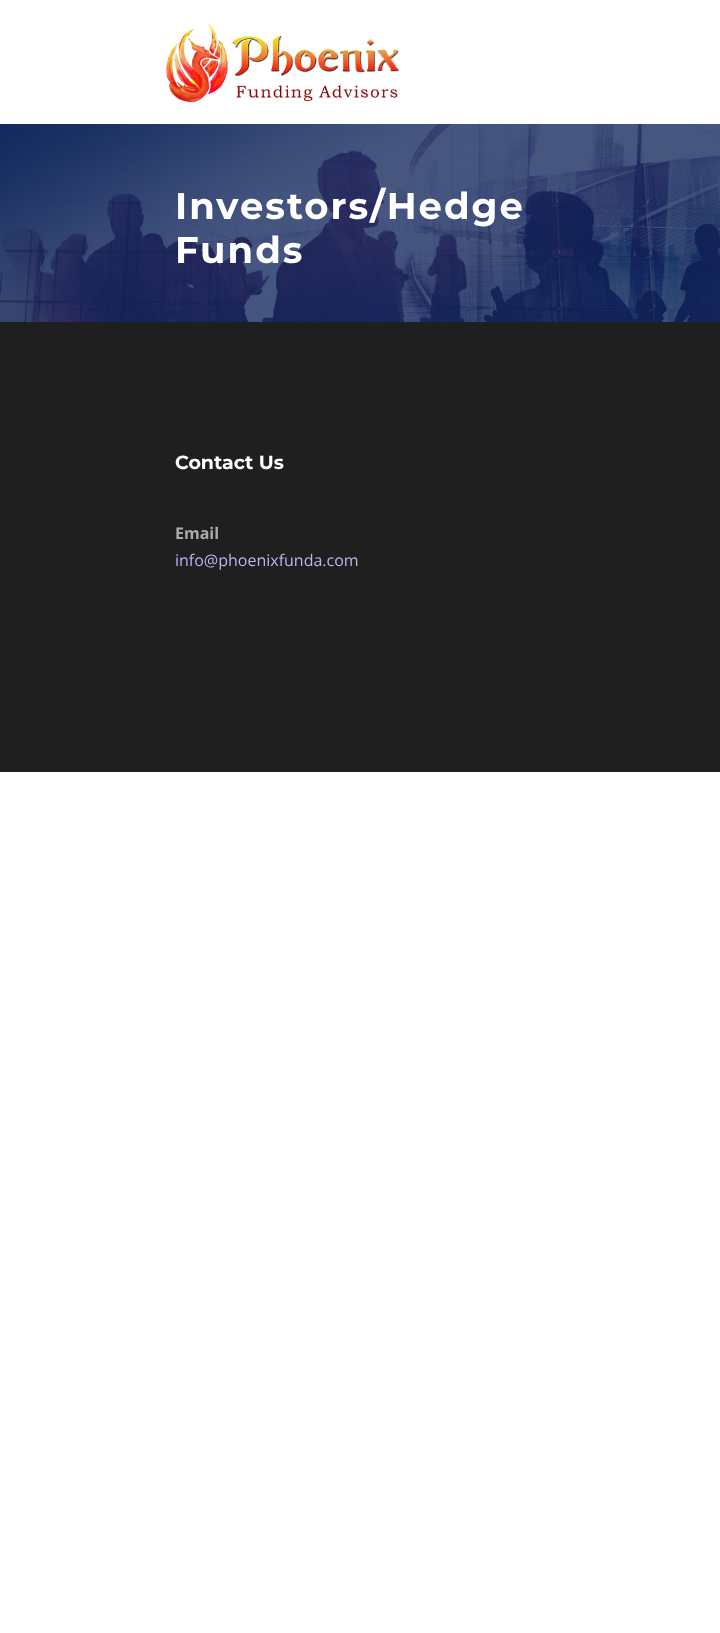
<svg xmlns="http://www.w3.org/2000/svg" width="720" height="1633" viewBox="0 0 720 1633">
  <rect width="100%" height="100%" fill="#ffffff"/>
  <image x="165" y="23" width="235" height="80" href="img1.png"/>
  <image x="0" y="124" width="720" height="198" href="img2.png"/>
  <text x="175" y="219" font-family="Montserrat" font-size="37" font-weight="bold" letter-spacing="2" fill="#ffffff">Investors/Hedge</text>
  <text x="175" y="263" font-family="Montserrat" font-size="37" font-weight="bold" letter-spacing="2" fill="#ffffff">Funds</text>
  <rect x="0" y="322" width="720" height="450" fill="#1f1f1f"/>
  <text x="175" y="469" font-family="Montserrat" font-size="19" font-weight="bold" fill="#ffffff">Contact Us</text>
  <text x="175" y="539" font-family="Open Sans" font-size="16" font-weight="bold" fill="#ababab">Email</text>
  <text x="175" y="566" font-family="Open Sans" font-size="16" fill="#b5b7f1">info@phoenixfunda.com</text>
</svg>
